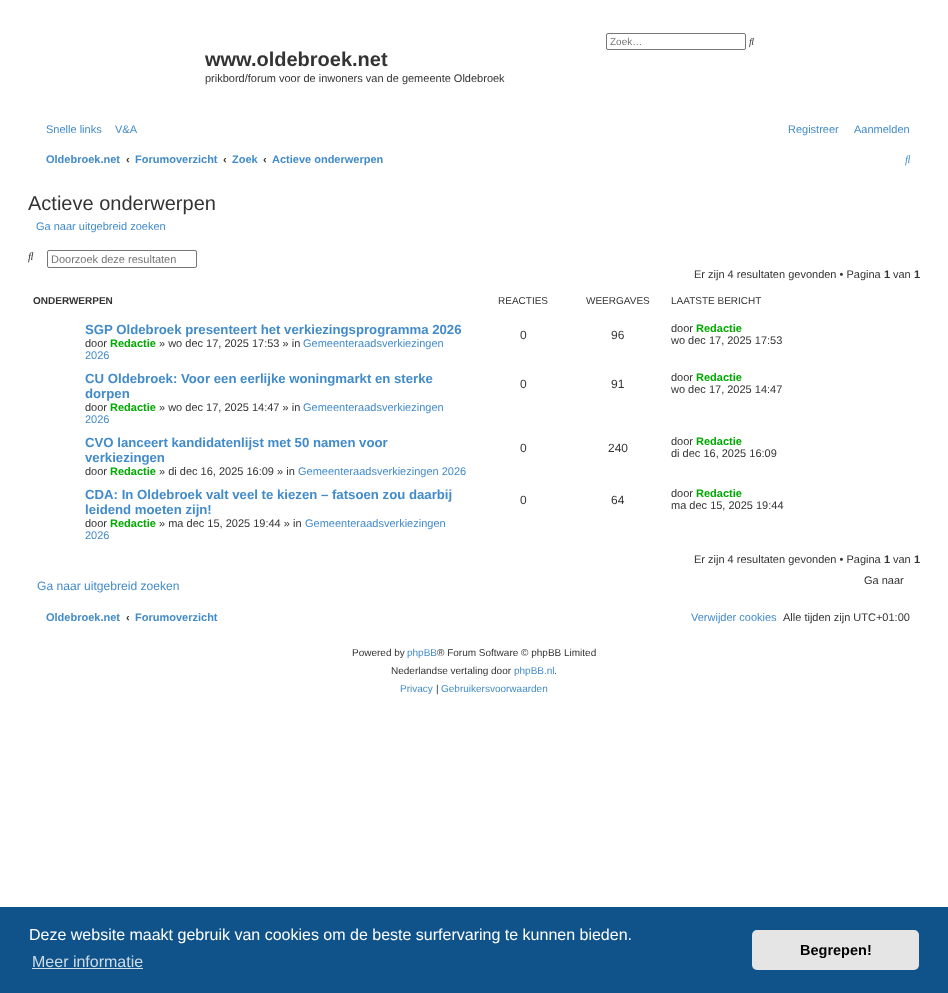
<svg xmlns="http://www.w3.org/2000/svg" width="948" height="993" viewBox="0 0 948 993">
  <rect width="100%" height="100%" fill="#ffffff"/>
  <rect x="606.5" y="33.5" width="139" height="16" rx="1.5" fill="none" stroke="#767676"/>
  <text x="610" y="45" font-family="Liberation Sans" font-size="10" fill="#757575">Zoek…</text>
  <image x="749" y="38" width="5" height="10" href="img1.png"/>
  <text x="205" y="66" font-family="Liberation Sans" font-size="20" font-weight="bold" fill="#333333">www.oldebroek.net</text>
  <text x="205" y="82" font-family="Liberation Sans" font-size="11" fill="#333333">prikbord/forum voor de inwoners van de gemeente Oldebroek</text>
  <text x="46" y="133" font-family="Liberation Sans" font-size="11" fill="#428bca">Snelle links</text>
  <text x="115" y="133" font-family="Liberation Sans" font-size="11" fill="#428bca">V&amp;A</text>
  <text x="788" y="133" font-family="Liberation Sans" font-size="11" fill="#428bca">Registreer</text>
  <text x="854" y="133" font-family="Liberation Sans" font-size="11" fill="#428bca">Aanmelden</text>
  <text x="46" y="163" font-family="Liberation Sans" font-size="11" font-weight="bold" fill="#428bca">Oldebroek.net</text>
  <text x="126" y="163" font-family="Liberation Sans" font-size="11" font-weight="bold" fill="#333333">‹</text>
  <text x="135" y="163" font-family="Liberation Sans" font-size="11" font-weight="bold" fill="#428bca">Forumoverzicht</text>
  <text x="223" y="163" font-family="Liberation Sans" font-size="11" font-weight="bold" fill="#333333">‹</text>
  <text x="232" y="163" font-family="Liberation Sans" font-size="11" font-weight="bold" fill="#428bca">Zoek</text>
  <text x="263" y="163" font-family="Liberation Sans" font-size="11" font-weight="bold" fill="#333333">‹</text>
  <text x="272" y="163" font-family="Liberation Sans" font-size="11" font-weight="bold" fill="#428bca">Actieve onderwerpen</text>
  <image x="905" y="155" width="6" height="11" href="img2.png"/>
  <text x="28" y="210" font-family="Liberation Sans" font-size="20" fill="#333333">Actieve onderwerpen</text>
  <text x="36" y="230" font-family="Liberation Sans" font-size="11" fill="#428bca">Ga naar uitgebreid zoeken</text>
  <image x="28" y="252" width="6" height="11" href="img3.png"/>
  <rect x="47.5" y="250.5" width="149" height="17" rx="1.5" fill="none" stroke="#767676"/>
  <text x="51" y="263" font-family="Liberation Sans" font-size="11" fill="#757575">Doorzoek deze resultaten</text>
  <text x="694" y="278" font-family="Liberation Sans" font-size="11" fill="#333333">Er zijn 4 resultaten gevonden • Pagina</text>
  <text x="884" y="278" font-family="Liberation Sans" font-size="11" font-weight="bold" fill="#333333">1</text>
  <text x="893" y="278" font-family="Liberation Sans" font-size="11" fill="#333333">van</text>
  <text x="914" y="278" font-family="Liberation Sans" font-size="11" font-weight="bold" fill="#333333">1</text>
  <text x="33" y="304" font-family="Liberation Sans" font-size="10" font-weight="bold" fill="#333333">ONDERWERPEN</text>
  <text x="498" y="304" font-family="Liberation Sans" font-size="10" fill="#333333">REACTIES</text>
  <text x="586" y="304" font-family="Liberation Sans" font-size="10" fill="#333333">WEERGAVES</text>
  <text x="671" y="304" font-family="Liberation Sans" font-size="10" fill="#333333">LAATSTE BERICHT</text>
  <text x="85" y="334" font-family="Liberation Sans" font-size="13.2" font-weight="bold" fill="#428bca">SGP Oldebroek presenteert het verkiezingsprogramma 2026</text>
  <text x="85" y="347" font-family="Liberation Sans" font-size="11" fill="#333333">door</text>
  <text x="110" y="347" font-family="Liberation Sans" font-size="11" font-weight="bold" fill="#00aa00">Redactie</text>
  <text x="159" y="347" font-family="Liberation Sans" font-size="11" fill="#333333">» wo dec 17, 2025 17:53 » in</text>
  <text x="303" y="347" font-family="Liberation Sans" font-size="11" fill="#428bca">Gemeenteraadsverkiezingen</text>
  <text x="85" y="359" font-family="Liberation Sans" font-size="11" fill="#428bca">2026</text>
  <text x="520" y="339" font-family="Liberation Sans" font-size="12" fill="#333333">0</text>
  <text x="611" y="339" font-family="Liberation Sans" font-size="12" fill="#333333">96</text>
  <text x="671" y="332" font-family="Liberation Sans" font-size="11" fill="#333333">door</text>
  <text x="696" y="332" font-family="Liberation Sans" font-size="11" font-weight="bold" fill="#00aa00">Redactie</text>
  <text x="671" y="344" font-family="Liberation Sans" font-size="11" fill="#333333">wo dec 17, 2025 17:53</text>
  <text x="85" y="383" font-family="Liberation Sans" font-size="13.2" font-weight="bold" fill="#428bca">CU Oldebroek: Voor een eerlijke woningmarkt en sterke</text>
  <text x="85" y="398" font-family="Liberation Sans" font-size="13.2" font-weight="bold" fill="#428bca">dorpen</text>
  <text x="85" y="411" font-family="Liberation Sans" font-size="11" fill="#333333">door</text>
  <text x="110" y="411" font-family="Liberation Sans" font-size="11" font-weight="bold" fill="#00aa00">Redactie</text>
  <text x="159" y="411" font-family="Liberation Sans" font-size="11" fill="#333333">» wo dec 17, 2025 14:47 » in</text>
  <text x="303" y="411" font-family="Liberation Sans" font-size="11" fill="#428bca">Gemeenteraadsverkiezingen</text>
  <text x="85" y="423" font-family="Liberation Sans" font-size="11" fill="#428bca">2026</text>
  <text x="520" y="388" font-family="Liberation Sans" font-size="12" fill="#333333">0</text>
  <text x="611" y="388" font-family="Liberation Sans" font-size="12" fill="#333333">91</text>
  <text x="671" y="381" font-family="Liberation Sans" font-size="11" fill="#333333">door</text>
  <text x="696" y="381" font-family="Liberation Sans" font-size="11" font-weight="bold" fill="#00aa00">Redactie</text>
  <text x="671" y="393" font-family="Liberation Sans" font-size="11" fill="#333333">wo dec 17, 2025 14:47</text>
  <text x="85" y="447" font-family="Liberation Sans" font-size="13.2" font-weight="bold" fill="#428bca">CVO lanceert kandidatenlijst met 50 namen voor</text>
  <text x="85" y="462" font-family="Liberation Sans" font-size="13.2" font-weight="bold" fill="#428bca">verkiezingen</text>
  <text x="85" y="475" font-family="Liberation Sans" font-size="11" fill="#333333">door</text>
  <text x="110" y="475" font-family="Liberation Sans" font-size="11" font-weight="bold" fill="#00aa00">Redactie</text>
  <text x="159" y="475" font-family="Liberation Sans" font-size="11" fill="#333333">» di dec 16, 2025 16:09 » in</text>
  <text x="298" y="475" font-family="Liberation Sans" font-size="11" fill="#428bca">Gemeenteraadsverkiezingen 2026</text>
  <text x="520" y="452" font-family="Liberation Sans" font-size="12" fill="#333333">0</text>
  <text x="608" y="452" font-family="Liberation Sans" font-size="12" fill="#333333">240</text>
  <text x="671" y="445" font-family="Liberation Sans" font-size="11" fill="#333333">door</text>
  <text x="696" y="445" font-family="Liberation Sans" font-size="11" font-weight="bold" fill="#00aa00">Redactie</text>
  <text x="671" y="457" font-family="Liberation Sans" font-size="11" fill="#333333">di dec 16, 2025 16:09</text>
  <text x="85" y="499" font-family="Liberation Sans" font-size="13.2" font-weight="bold" fill="#428bca">CDA: In Oldebroek valt veel te kiezen – fatsoen zou daarbij</text>
  <text x="85" y="514" font-family="Liberation Sans" font-size="13.2" font-weight="bold" fill="#428bca">leidend moeten zijn!</text>
  <text x="85" y="527" font-family="Liberation Sans" font-size="11" fill="#333333">door</text>
  <text x="110" y="527" font-family="Liberation Sans" font-size="11" font-weight="bold" fill="#00aa00">Redactie</text>
  <text x="159" y="527" font-family="Liberation Sans" font-size="11" fill="#333333">» ma dec 15, 2025 19:44 » in</text>
  <text x="305" y="527" font-family="Liberation Sans" font-size="11" fill="#428bca">Gemeenteraadsverkiezingen</text>
  <text x="85" y="539" font-family="Liberation Sans" font-size="11" fill="#428bca">2026</text>
  <text x="520" y="504" font-family="Liberation Sans" font-size="12" fill="#333333">0</text>
  <text x="611" y="504" font-family="Liberation Sans" font-size="12" fill="#333333">64</text>
  <text x="671" y="497" font-family="Liberation Sans" font-size="11" fill="#333333">door</text>
  <text x="696" y="497" font-family="Liberation Sans" font-size="11" font-weight="bold" fill="#00aa00">Redactie</text>
  <text x="671" y="509" font-family="Liberation Sans" font-size="11" fill="#333333">ma dec 15, 2025 19:44</text>
  <text x="694" y="563" font-family="Liberation Sans" font-size="11" fill="#333333">Er zijn 4 resultaten gevonden • Pagina</text>
  <text x="884" y="563" font-family="Liberation Sans" font-size="11" font-weight="bold" fill="#333333">1</text>
  <text x="893" y="563" font-family="Liberation Sans" font-size="11" fill="#333333">van</text>
  <text x="914" y="563" font-family="Liberation Sans" font-size="11" font-weight="bold" fill="#333333">1</text>
  <text x="37" y="590" font-family="Liberation Sans" font-size="12.1" fill="#428bca">Ga naar uitgebreid zoeken</text>
  <text x="864" y="584" font-family="Liberation Sans" font-size="11" fill="#333333">Ga naar</text>
  <text x="46" y="621" font-family="Liberation Sans" font-size="11" font-weight="bold" fill="#428bca">Oldebroek.net</text>
  <text x="126" y="621" font-family="Liberation Sans" font-size="11" font-weight="bold" fill="#333333">‹</text>
  <text x="135" y="621" font-family="Liberation Sans" font-size="11" font-weight="bold" fill="#428bca">Forumoverzicht</text>
  <text x="691" y="621" font-family="Liberation Sans" font-size="11" fill="#428bca">Verwijder cookies</text>
  <text x="783" y="621" font-family="Liberation Sans" font-size="11" fill="#333333">Alle tijden zijn UTC+01:00</text>
  <text x="352" y="656" font-family="Liberation Sans" font-size="10" fill="#333333">Powered by</text>
  <text x="407" y="656" font-family="Liberation Sans" font-size="10" fill="#428bca">phpBB</text>
  <text x="437" y="656" font-family="Liberation Sans" font-size="10" fill="#333333">® Forum Software © phpBB Limited</text>
  <text x="391" y="674" font-family="Liberation Sans" font-size="10" fill="#333333">Nederlandse vertaling door</text>
  <text x="514" y="674" font-family="Liberation Sans" font-size="10" fill="#428bca">phpBB.nl</text>
  <text x="554" y="674" font-family="Liberation Sans" font-size="10" fill="#333333">.</text>
  <text x="400" y="692" font-family="Liberation Sans" font-size="10" fill="#428bca">Privacy</text>
  <text x="436" y="692" font-family="Liberation Sans" font-size="10" fill="#333333">|</text>
  <text x="441" y="692" font-family="Liberation Sans" font-size="10" fill="#428bca">Gebruikersvoorwaarden</text>
  <rect x="0" y="907" width="948" height="86" fill="#0f538a"/>
  <text x="29" y="940" font-family="Liberation Sans" font-size="16" fill="#ffffff">Deze website maakt gebruik van cookies om de beste surfervaring te kunnen bieden.</text>
  <text x="32" y="967" font-family="Liberation Sans" font-size="16" fill="#cfdde8">Meer informatie</text>
  <rect x="32" y="968" width="111" height="1" fill="#cfdde8"/>
  <rect x="752" y="930" width="167" height="40" rx="5" fill="#e5e5e5"/>
  <text x="800" y="955" font-family="Liberation Sans" font-size="14.5" font-weight="bold" fill="#000000">Begrepen!</text>
</svg>
